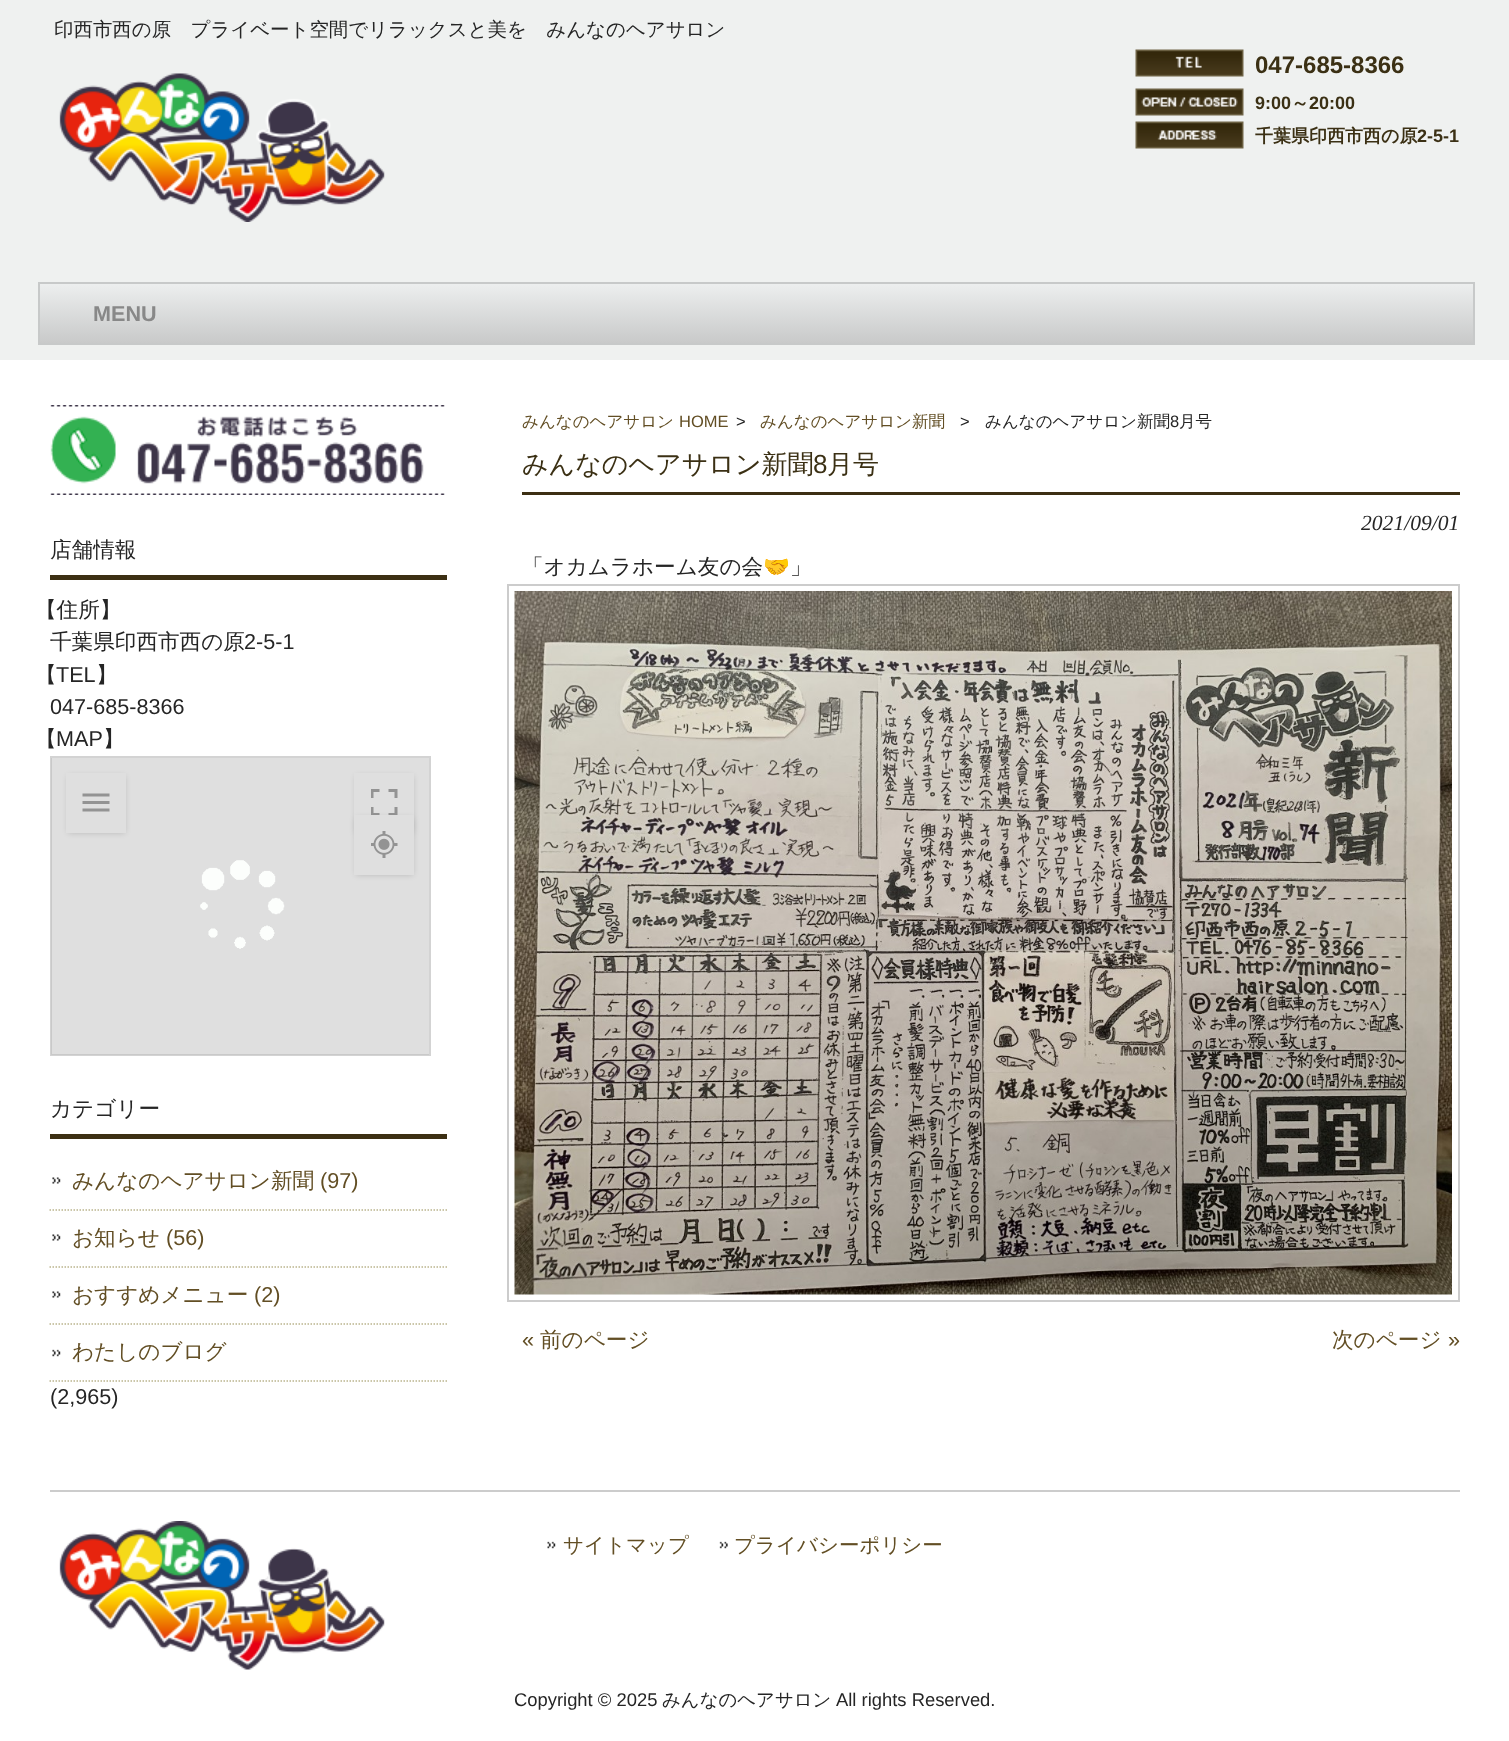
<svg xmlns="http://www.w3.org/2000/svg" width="1509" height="1741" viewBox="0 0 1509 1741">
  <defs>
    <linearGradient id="g1" gradientUnits="userSpaceOnUse" x1="756" y1="283" x2="756" y2="344"><stop offset="0" stop-color="#edefef"/><stop offset="1" stop-color="#c8c9c9"/></linearGradient>
    <filter id="blur1" x="-50%" y="-200%" width="200%" height="500%"><feGaussianBlur stdDeviation="3"/></filter>
  </defs>
  <rect width="100%" height="100%" fill="#ffffff"/>
  <rect x="0" y="0" width="1509" height="360" fill="#eff1f0"/>
  <text x="54" y="36" font-family="WenQuanYi Zen Hei" font-size="19.45" font-weight="500" fill="#252525">印西市西の原　プライベート空間でリラックスと美を　みんなのヘアサロン</text>
  <image x="59" y="73" width="326" height="149" href="img1.png"/>
  <image x="1135" y="49" width="109" height="28" href="img2.png"/>
  <text x="1255" y="73" font-family="Liberation Sans" font-size="24" font-weight="bold" fill="#3b3014">047-685-8366</text>
  <image x="1135" y="88" width="109" height="28" href="img3.png"/>
  <text x="1255" y="109" font-family="Liberation Sans" font-size="18" font-weight="bold" fill="#3b3014">9:00</text>
  <text x="1291" y="109" font-family="WenQuanYi Zen Hei" font-size="18" font-weight="bold" fill="#3b3014">～</text>
  <text x="1309" y="109" font-family="Liberation Sans" font-size="18" font-weight="bold" fill="#3b3014">20:00</text>
  <image x="1135" y="121" width="109" height="28" href="img4.png"/>
  <text x="1255" y="142" font-family="WenQuanYi Zen Hei" font-size="18" font-weight="bold" fill="#3b3014">千葉県印西市西の原</text>
  <text x="1417" y="142" font-family="Liberation Sans" font-size="18" font-weight="bold" fill="#3b3014">2-5-1</text>
  <rect x="40" y="284" width="1433" height="59" fill="url(#g1)"/>
  <rect x="39" y="283" width="1435" height="61" fill="none" stroke="#c7c9c9" stroke-width="2"/>
  <text x="93" y="321" font-family="Liberation Sans" font-size="21.6" font-weight="bold" fill="#888888">MENU</text>
  <image x="50" y="405" width="395" height="90" href="img5.png"/>
  <rect x="50" y="575" width="397" height="5" fill="#3c2f13"/>
  <text x="50" y="557" font-family="WenQuanYi Zen Hei" font-size="21.6" font-weight="500" fill="#252525">店舗情報</text>
  <text x="35" y="617" font-family="WenQuanYi Zen Hei" font-size="21.6" font-weight="500" fill="#252525">【住所】</text>
  <text x="50" y="649" font-family="WenQuanYi Zen Hei" font-size="21.6" font-weight="500" fill="#252525">千葉県印西市西の原</text>
  <text x="244" y="649" font-family="Liberation Sans" font-size="21.6" fill="#252525">2-5-1</text>
  <text x="35" y="682" font-family="WenQuanYi Zen Hei" font-size="21.6" font-weight="500" fill="#252525">【</text>
  <text x="56" y="682" font-family="Liberation Sans" font-size="21.6" fill="#252525">TEL</text>
  <text x="96" y="682" font-family="WenQuanYi Zen Hei" font-size="21.6" font-weight="500" fill="#252525">】</text>
  <text x="50" y="714" font-family="Liberation Sans" font-size="21.6" fill="#252525">047-685-8366</text>
  <text x="35" y="746" font-family="WenQuanYi Zen Hei" font-size="21.6" font-weight="500" fill="#252525">【</text>
  <text x="56" y="746" font-family="Liberation Sans" font-size="21.6" fill="#252525">MAP</text>
  <text x="103" y="746" font-family="WenQuanYi Zen Hei" font-size="21.6" font-weight="500" fill="#252525">】</text>
  <rect x="51" y="757" width="379" height="298" fill="none" stroke="#d3d3d3" stroke-width="2"/>
  <rect x="68" y="776" width="57" height="57" fill="#000000" fill-opacity="0.3" filter="url(#blur1)"/>
  <rect x="66" y="773" width="60" height="60" fill="#ffffff"/>
  <image x="82" y="793" width="28" height="19" href="img6.png"/>
  <rect x="356" y="776" width="57" height="57" fill="#000000" fill-opacity="0.3" filter="url(#blur1)"/>
  <rect x="354" y="773" width="60" height="42" fill="#ffffff"/>
  <image x="371" y="789" width="27" height="26" href="img7.png"/>
  <rect x="356" y="818" width="57" height="57" fill="#000000" fill-opacity="0.3" filter="url(#blur1)"/>
  <rect x="354" y="815" width="60" height="60" fill="#ffffff"/>
  <image x="371" y="831" width="27" height="27" href="img8.png"/>
  <rect x="51" y="758" width="378" height="297" fill="#c0c0c0" fill-opacity="0.5"/>
  <image x="200" y="860" width="85" height="89" href="img9.png"/>
  <rect x="50" y="1134" width="397" height="5" fill="#3c2f13"/>
  <text x="50" y="1116" font-family="WenQuanYi Zen Hei" font-size="21.6" font-weight="500" fill="#252525">カテゴリー</text>
  <image x="52" y="1177" width="9" height="7" href="img10.png"/>
  <path d="M49.5 1210H447" fill="none" stroke="#bab48d" stroke-width="1.5" stroke-dasharray="1.5 1.5"/>
  <text x="72" y="1188" font-family="WenQuanYi Zen Hei" font-size="21.6" font-weight="500" fill="#624e24">みんなのヘアサロン新聞</text>
  <text x="320" y="1188" font-family="Liberation Sans" font-size="21.6" fill="#624e24">(97)</text>
  <image x="52" y="1234" width="9" height="7" href="img10.png"/>
  <path d="M49.5 1267H447" fill="none" stroke="#bab48d" stroke-width="1.5" stroke-dasharray="1.5 1.5"/>
  <text x="72" y="1245" font-family="WenQuanYi Zen Hei" font-size="21.6" font-weight="500" fill="#624e24">お知らせ</text>
  <text x="166" y="1245" font-family="Liberation Sans" font-size="21.6" fill="#624e24">(56)</text>
  <image x="52" y="1291" width="9" height="7" href="img10.png"/>
  <path d="M49.5 1324H447" fill="none" stroke="#bab48d" stroke-width="1.5" stroke-dasharray="1.5 1.5"/>
  <text x="72" y="1302" font-family="WenQuanYi Zen Hei" font-size="21.6" font-weight="500" fill="#624e24">おすすめメニュー</text>
  <text x="254" y="1302" font-family="Liberation Sans" font-size="21.6" fill="#624e24">(2)</text>
  <image x="52" y="1349" width="9" height="8" href="img11.png"/>
  <path d="M49.5 1381H447" fill="none" stroke="#bab48d" stroke-width="1.5" stroke-dasharray="1.5 1.5"/>
  <text x="72" y="1359" font-family="WenQuanYi Zen Hei" font-size="21.6" font-weight="500" fill="#624e24">わたしのブログ</text>
  <text x="50" y="1404" font-family="Liberation Sans" font-size="21.6" fill="#252525">(2,965)</text>
  <text x="522" y="427" font-family="WenQuanYi Zen Hei" font-size="16.5" font-weight="500" fill="#624e24">みんなのヘアサロン</text>
  <text x="679" y="427" font-family="Liberation Sans" font-size="16.5" fill="#624e24">HOME</text>
  <text x="736" y="427" font-family="Liberation Sans" font-size="16.5" fill="#252525">&gt;</text>
  <text x="760" y="427" font-family="WenQuanYi Zen Hei" font-size="16.5" font-weight="500" fill="#624e24">みんなのヘアサロン新聞</text>
  <text x="960" y="427" font-family="Liberation Sans" font-size="16.5" fill="#252525">&gt;</text>
  <text x="985" y="427" font-family="WenQuanYi Zen Hei" font-size="16.5" font-weight="500" fill="#252525">みんなのヘアサロン新聞</text>
  <text x="1170" y="427" font-family="Liberation Sans" font-size="16.5" fill="#252525">8</text>
  <text x="1179" y="427" font-family="WenQuanYi Zen Hei" font-size="16.5" font-weight="500" fill="#252525">月号</text>
  <rect x="522" y="492" width="938" height="3" fill="#3c2f13"/>
  <text x="522" y="473" font-family="WenQuanYi Zen Hei" font-size="26" font-weight="500" fill="#3b3014">みんなのヘアサロン新聞</text>
  <text x="813" y="473" font-family="Liberation Sans" font-size="26" fill="#3b3014">8</text>
  <text x="827" y="473" font-family="WenQuanYi Zen Hei" font-size="26" font-weight="500" fill="#3b3014">月号</text>
  <text x="1361" y="530" font-family="Liberation Serif" font-size="21.6" font-style="italic" fill="#252525">2021/09/01</text>
  <text x="522" y="574" font-family="WenQuanYi Zen Hei" font-size="21.6" font-weight="500" fill="#252525">「オカムラホーム友の会</text>
  <text x="763" y="574" font-family="Noto Color Emoji" font-size="21.6" fill="#252525">🤝</text>
  <text x="790" y="574" font-family="WenQuanYi Zen Hei" font-size="21.6" font-weight="500" fill="#252525">」</text>
  <rect x="508" y="585" width="951" height="716" fill="none" stroke="#cccccc" stroke-width="2"/>
  <image x="514" y="591" width="938" height="704" href="img12.png"/>
  <text x="522" y="1347" font-family="Liberation Sans" font-size="21.6" fill="#624e24">«</text>
  <text x="540" y="1347" font-family="WenQuanYi Zen Hei" font-size="21.6" font-weight="500" fill="#624e24">前のページ</text>
  <text x="1332" y="1347" font-family="WenQuanYi Zen Hei" font-size="21.6" font-weight="500" fill="#624e24">次のページ</text>
  <text x="1448" y="1347" font-family="Liberation Sans" font-size="21.6" fill="#624e24">»</text>
  <rect x="50" y="1490" width="1410" height="2" fill="#cccccc"/>
  <image x="59" y="1521" width="326" height="149" href="img13.png"/>
  <image x="547" y="1541" width="9" height="8" href="img14.png"/>
  <text x="563" y="1552" font-family="WenQuanYi Zen Hei" font-size="20.5" font-weight="500" fill="#624e24">サイトマップ</text>
  <image x="719" y="1541" width="9" height="8" href="img15.png"/>
  <text x="734" y="1552" font-family="WenQuanYi Zen Hei" font-size="20.5" font-weight="500" fill="#624e24">プライバシーポリシー</text>
  <text x="514" y="1706" font-family="Liberation Sans" font-size="18.4" fill="#252525">Copyright © 2025</text>
  <text x="662" y="1706" font-family="WenQuanYi Zen Hei" font-size="18.4" font-weight="500" fill="#252525">みんなのヘアサロン</text>
  <text x="836" y="1706" font-family="Liberation Sans" font-size="18.4" fill="#252525">All rights Reserved.</text>
</svg>
